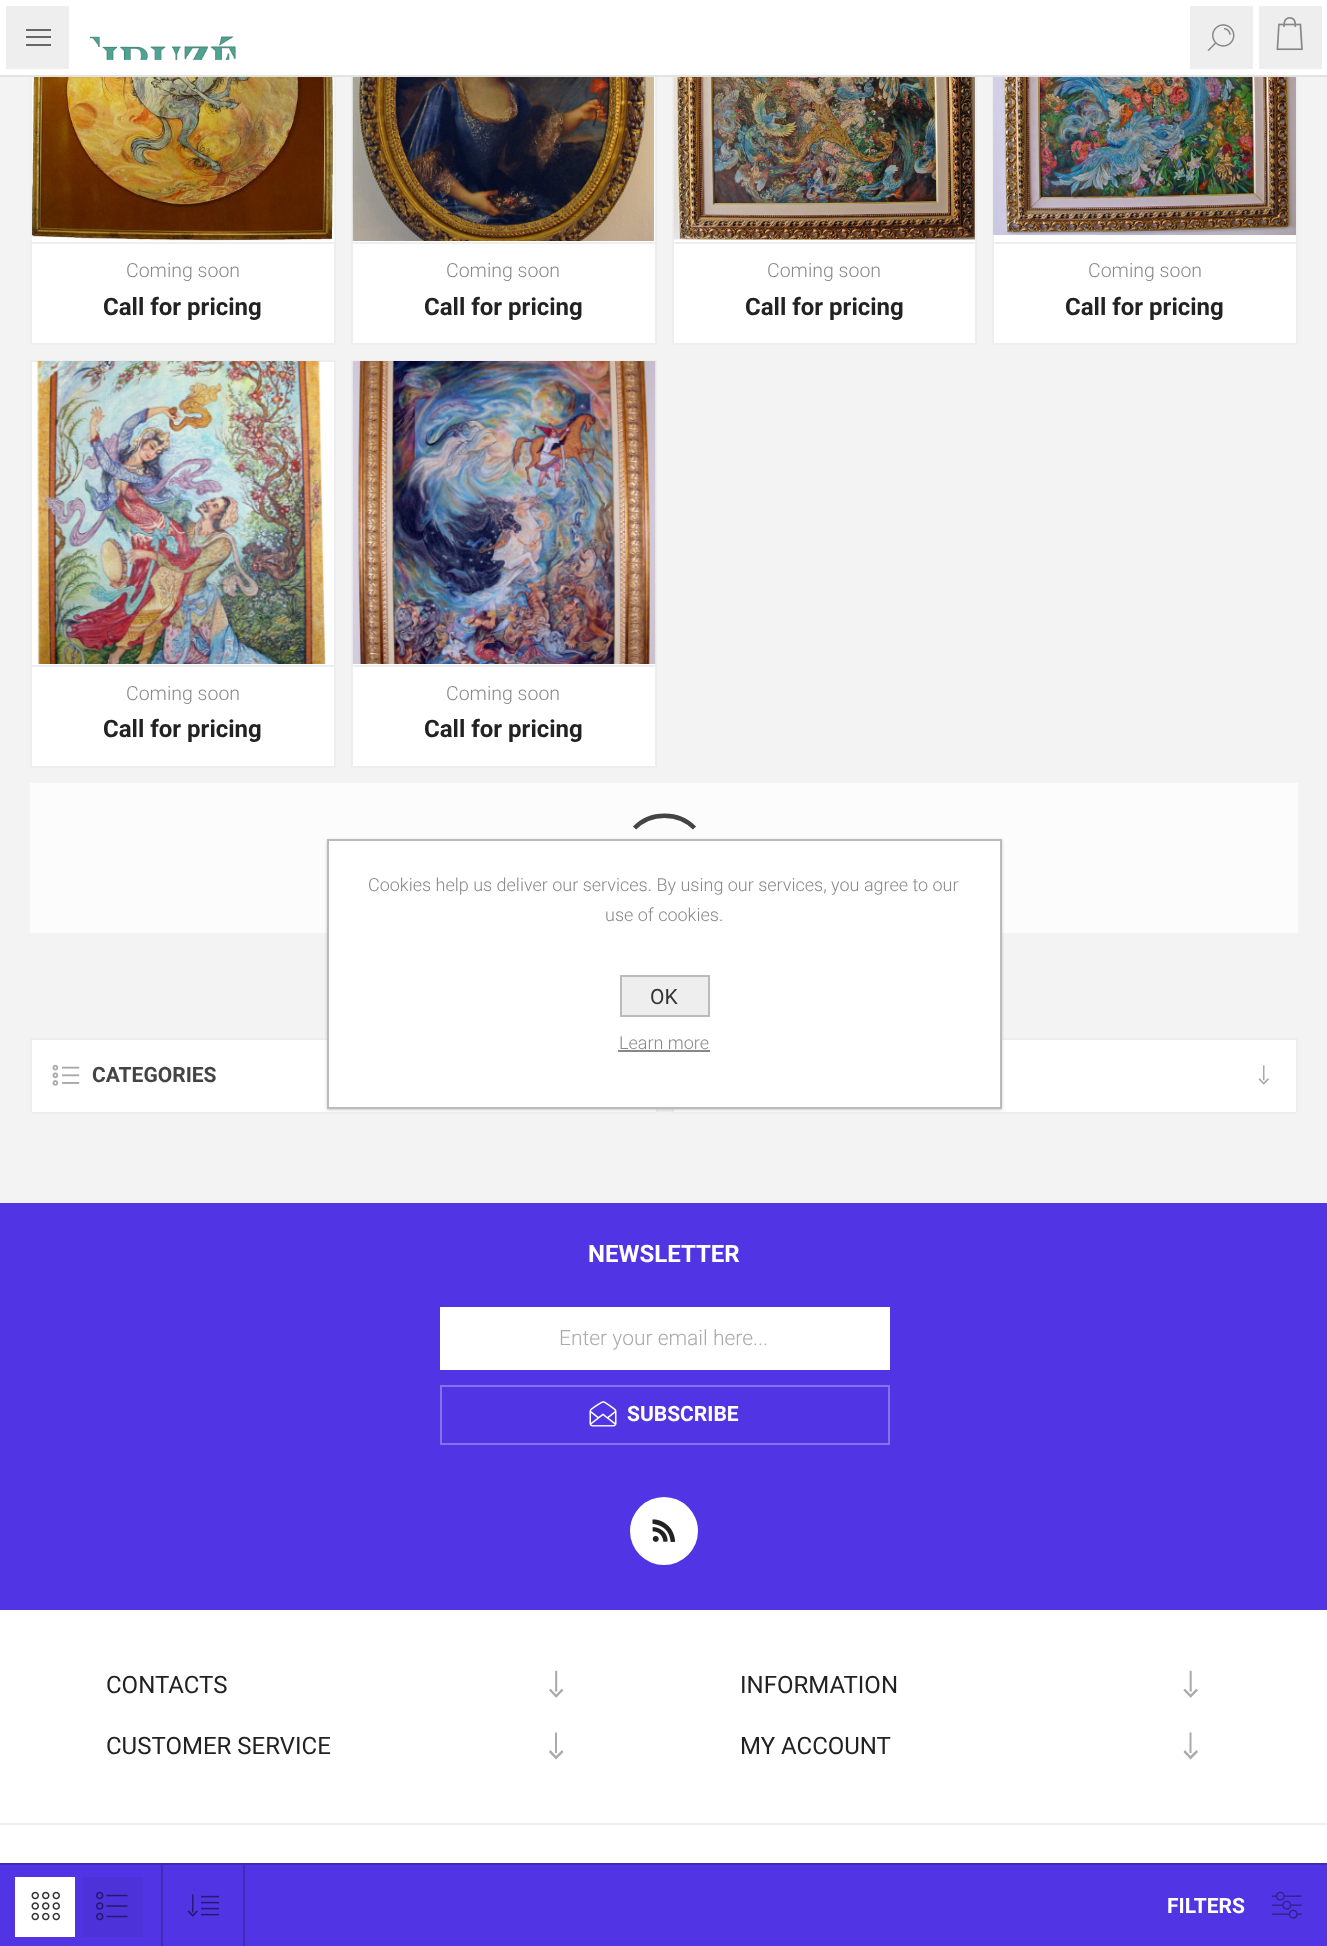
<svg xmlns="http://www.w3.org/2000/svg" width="1327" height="1946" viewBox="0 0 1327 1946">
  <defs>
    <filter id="blur1" x="-50%" y="-200%" width="200%" height="500%"><feGaussianBlur stdDeviation="1.5"/></filter>
  </defs>
  <rect width="100%" height="100%" fill="#f3f3f3"/>
  <rect x="32" y="241" width="302" height="102" fill="#ffffff"/>
  <rect x="31" y="-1" width="304" height="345" fill="none" stroke="#eeeeee" stroke-width="2"/>
  <rect x="353" y="77" width="302" height="266" fill="#ffffff"/>
  <rect x="352" y="-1" width="304" height="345" fill="none" stroke="#eeeeee" stroke-width="2"/>
  <rect x="674" y="239" width="301" height="104" fill="#ffffff"/>
  <rect x="673" y="-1" width="303" height="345" fill="none" stroke="#eeeeee" stroke-width="2"/>
  <rect x="994" y="235" width="302" height="108" fill="#ffffff"/>
  <rect x="993" y="-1" width="304" height="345" fill="none" stroke="#eeeeee" stroke-width="2"/>
  <path d="M0 75V77H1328V2V75Z" fill="#e3e3e3"/>
  <rect x="75" y="0" width="1178" height="75" fill="#ffffff"/>
  <image x="90" y="36" width="146" height="24" href="img1.png"/>
  <rect x="1190" y="6" width="63" height="63" fill="#eeeeee"/>
  <image x="1207" y="24" width="28" height="27" href="img2.png"/>
  <rect x="3" y="3" width="69" height="69" fill="#eeeeee" stroke="#ffffff" stroke-width="6"/>
  <rect x="26" y="29" width="25" height="2" fill="#666666"/>
  <rect x="26" y="36" width="25" height="2" fill="#666666"/>
  <rect x="26" y="44" width="25" height="2" fill="#666666"/>
  <rect x="1256" y="3" width="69" height="69" fill="#eeeeee" stroke="#ffffff" stroke-width="6"/>
  <image x="1276" y="17" width="27" height="34" href="img3.png"/>
  <rect x="32" y="242" width="303" height="2" fill="#eeeeee"/>
  <image x="31" y="77" width="304" height="164" href="img4.png"/>
  <text x="126" y="277" font-family="Roboto" font-size="19.5" font-weight="300" fill="#888888">Coming soon</text>
  <text x="103" y="315" font-family="Roboto" font-size="24" font-weight="bold" fill="#222222">Call for pricing</text>
  <rect x="353" y="242" width="303" height="2" fill="#eeeeee"/>
  <image x="352" y="77" width="302" height="164" href="img5.png"/>
  <text x="446" y="277" font-family="Roboto" font-size="19.5" font-weight="300" fill="#888888">Coming soon</text>
  <text x="424" y="315" font-family="Roboto" font-size="24" font-weight="bold" fill="#222222">Call for pricing</text>
  <rect x="674" y="242" width="301" height="2" fill="#eeeeee"/>
  <image x="673" y="77" width="302" height="163" href="img6.png"/>
  <text x="767" y="277" font-family="Roboto" font-size="19.5" font-weight="300" fill="#888888">Coming soon</text>
  <text x="745" y="315" font-family="Roboto" font-size="24" font-weight="bold" fill="#222222">Call for pricing</text>
  <rect x="993" y="242" width="303" height="2" fill="#eeeeee"/>
  <image x="993" y="77" width="303" height="158" href="img7.png"/>
  <text x="1088" y="277" font-family="Roboto" font-size="19.5" font-weight="300" fill="#888888">Coming soon</text>
  <text x="1065" y="315" font-family="Roboto" font-size="24" font-weight="bold" fill="#222222">Call for pricing</text>
  <rect x="31" y="361" width="304" height="406" fill="#ffffff" stroke="#eeeeee" stroke-width="2"/>
  <rect x="32" y="665" width="303" height="2" fill="#eeeeee"/>
  <image x="37" y="361" width="289" height="303" href="img8.png"/>
  <text x="126" y="700" font-family="Roboto" font-size="19.5" font-weight="300" fill="#888888">Coming soon</text>
  <text x="103" y="737" font-family="Roboto" font-size="24" font-weight="bold" fill="#222222">Call for pricing</text>
  <rect x="353" y="664" width="302" height="102" fill="#ffffff"/>
  <rect x="352" y="361" width="304" height="406" fill="none" stroke="#eeeeee" stroke-width="2"/>
  <rect x="353" y="665" width="303" height="2" fill="#eeeeee"/>
  <image x="352" y="361" width="304" height="303" href="img9.png"/>
  <text x="446" y="700" font-family="Roboto" font-size="19.5" font-weight="300" fill="#888888">Coming soon</text>
  <text x="424" y="737" font-family="Roboto" font-size="24" font-weight="bold" fill="#222222">Call for pricing</text>
  <rect x="30" y="783" width="1268" height="150" fill="#fcfcfc"/>
  <path d="M634.5 828C650.5 811.5 678.5 811.5 694.5 828" fill="none" stroke="#444444" stroke-width="4.5"/>
  <rect x="0" y="1865" width="1327" height="81" fill="#5134e4"/>
  <rect x="0" y="1863" width="1327" height="2" fill="#412ab6"/>
  <rect x="161" y="1865" width="2" height="81" fill="#412ab6"/>
  <rect x="15" y="1877" width="60" height="60" fill="#ffffff"/>
  <image x="31" y="1891" width="29" height="30" href="img10.png"/>
  <rect x="83" y="1877" width="60" height="60" fill="#4d31d9"/>
  <image x="96" y="1891" width="32" height="30" href="img11.png"/>
  <image x="187" y="1894" width="32" height="23" href="img12.png"/>
  <rect x="243" y="1865" width="2" height="81" fill="#412ab6"/>
  <text x="1167" y="1913" font-family="Roboto" font-size="21" font-weight="bold" fill="#ffffff">FILTERS</text>
  <image x="1272" y="1891" width="30" height="28" href="img13.png"/>
  <rect x="32" y="1040" width="624" height="72" fill="#ffffff"/>
  <rect x="30" y="1038" width="297" height="2" fill="#eeeeee"/>
  <rect x="656" y="1109" width="2" height="4" fill="#eeeeee"/>
  <rect x="30" y="1038" width="2" height="75" fill="#eeeeee"/>
  <rect x="32" y="1112" width="624" height="2" fill="#eeeeee"/>
  <image x="52" y="1064" width="28" height="22" href="img14.png"/>
  <text x="92" y="1082" font-family="Roboto" font-size="21" font-weight="bold" fill="#444444">CATEGORIES</text>
  <rect x="674" y="1040" width="622" height="72" fill="#ffffff"/>
  <rect x="1002" y="1038" width="296" height="2" fill="#eeeeee"/>
  <rect x="1296" y="1038" width="2" height="75" fill="#eeeeee"/>
  <rect x="672" y="1109" width="2" height="4" fill="#eeeeee"/>
  <rect x="674" y="1112" width="622" height="2" fill="#eeeeee"/>
  <image x="1258" y="1065" width="11" height="20" href="img15.png"/>
  <rect x="0" y="1610" width="1327" height="213" fill="#ffffff"/>
  <rect x="0" y="1203" width="1327" height="407" fill="#5134e4"/>
  <text x="588" y="1262" font-family="Roboto" font-size="24" font-weight="bold" fill="#ffffff">NEWSLETTER</text>
  <rect x="440" y="1307" width="450" height="63" fill="#ffffff"/>
  <text x="559" y="1345" font-family="Roboto" font-size="21" font-weight="300" fill="#aaaaaa">Enter your email here...</text>
  <image x="589" y="1401" width="28" height="26" href="img16.png"/>
  <rect x="441" y="1386" width="448" height="58" fill="none" stroke="#8571ec" stroke-width="2"/>
  <text x="627" y="1421" font-family="Roboto" font-size="21" font-weight="bold" fill="#ffffff">SUBSCRIBE</text>
  <circle cx="664" cy="1531" r="34" fill="#ffffff"/>
  <image x="652" y="1519" width="23" height="23" href="img17.png"/>
  <text x="106" y="1693" font-family="Roboto" font-size="24" fill="#222222">CONTACTS</text>
  <image x="549" y="1670" width="15" height="28" href="img18.png"/>
  <text x="740" y="1693" font-family="Roboto" font-size="24" fill="#222222">INFORMATION</text>
  <image x="1183" y="1670" width="15" height="28" href="img19.png"/>
  <text x="106" y="1754" font-family="Roboto" font-size="24" fill="#222222">CUSTOMER SERVICE</text>
  <path d="M557 1753H555V1732.5H557ZM563.5 1752L562 1750L556 1756L550.5 1750L549 1752L556 1759.5Z" fill="#aaaaaa"/>
  <text x="740" y="1754" font-family="Roboto" font-size="24" fill="#222222">MY ACCOUNT</text>
  <path d="M1191.5 1753H1189.5V1732.5H1191.5ZM1198 1752L1196.5 1750L1190.5 1756L1185 1750L1183.5 1752L1190.5 1759.5Z" fill="#aaaaaa"/>
  <rect x="0" y="1825" width="1327" height="38" fill="#ffffff"/>
  <rect x="0" y="1823" width="1327" height="2" fill="#eeeeee"/>
  <rect x="327" y="840" width="675" height="270" fill="#000000" fill-opacity="0.2" filter="url(#blur1)"/>
  <rect x="328" y="840" width="673" height="268" fill="#ffffff" stroke="#bbbbbb" stroke-width="2"/>
  <text x="368" y="891" font-family="Roboto" font-size="18" font-weight="300" fill="#888888">Cookies help us deliver our services. By using our services, you agree to our</text>
  <text x="605" y="921" font-family="Roboto" font-size="18" font-weight="300" fill="#888888">use of cookies.</text>
  <rect x="621" y="976" width="88" height="40" fill="#eeeeee" stroke="#bbbbbb" stroke-width="2"/>
  <text x="650" y="1004" font-family="Roboto" font-size="21" fill="#333333">OK</text>
  <text x="619" y="1049" font-family="Roboto" font-size="18" font-weight="300" fill="#888888">Learn more</text>
  <rect x="618" y="1050" width="92" height="2" fill="#888888"/>
</svg>
